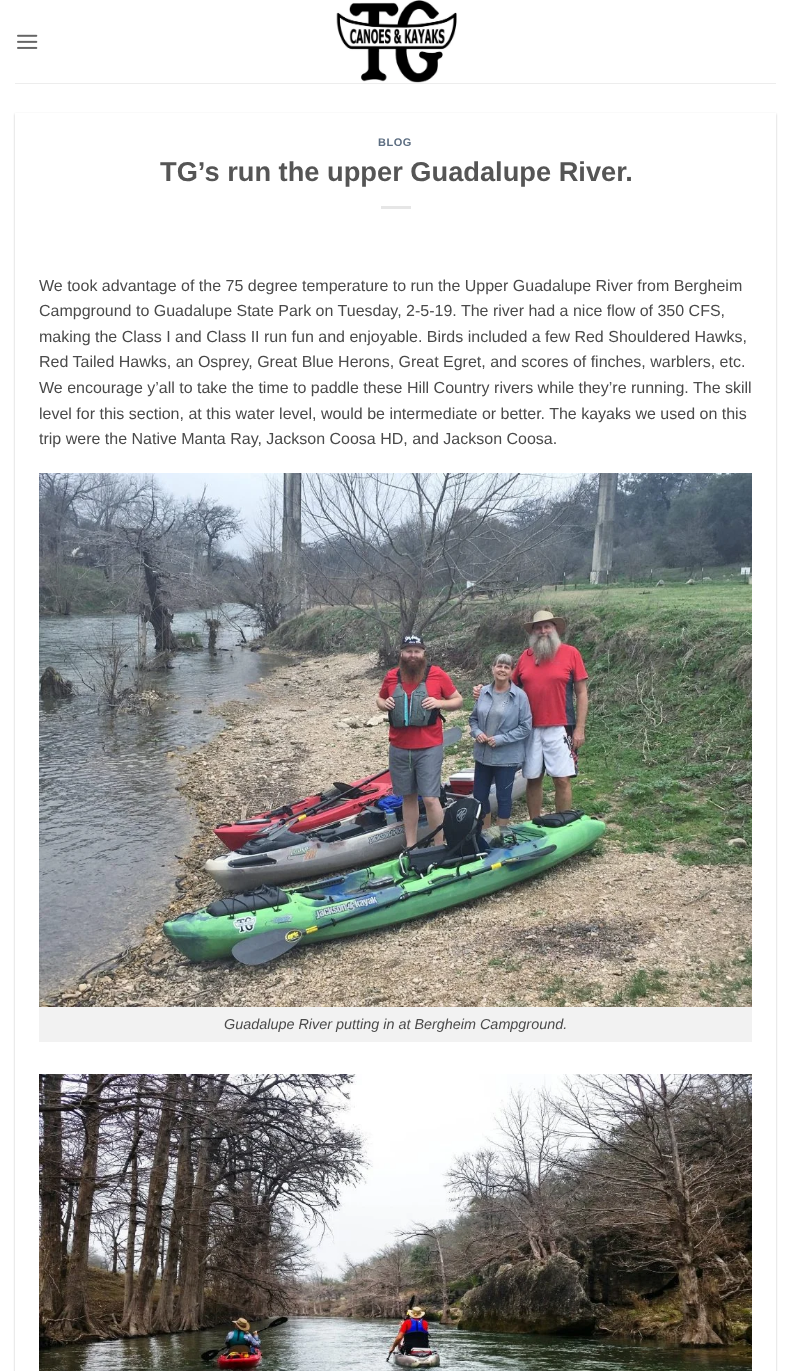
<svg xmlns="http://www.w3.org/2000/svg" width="791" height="1371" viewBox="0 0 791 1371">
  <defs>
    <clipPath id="clip1"><path d="M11 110H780V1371H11ZM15 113H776V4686H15Z" clip-rule="evenodd"/></clipPath>
    <filter id="blur1" x="-50%" y="-200%" width="200%" height="500%"><feGaussianBlur stdDeviation="1"/></filter>
  </defs>
  <rect width="100%" height="100%" fill="#ffffff"/>
  <image x="17" y="34" width="21" height="15" href="img1.png"/>
  <image x="336" y="0" width="121" height="83" href="img2.png"/>
  <rect x="15" y="83" width="761" height="1" fill="#ededed"/>
  <g clip-path="url(#clip1)">
    <rect x="15" y="114" width="761" height="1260" fill="#000000" fill-opacity="0.24" filter="url(#blur1)"/>
  </g>
  <text x="378" y="146" font-family="Liberation Sans" font-size="11" font-weight="bold" letter-spacing="0.5" fill="#5c6d81">BLOG</text>
  <text x="160" y="181" font-family="Liberation Sans" font-size="27.25" font-weight="bold" fill="#555555">TG’s run the upper Guadalupe River.</text>
  <rect x="381" y="206" width="30" height="3" fill="#e6e6e6"/>
  <text x="39" y="291" font-family="Liberation Sans" font-size="16" fill="#4a4a4a">We took advantage of the 75 degree temperature to run the Upper Guadalupe River from Bergheim</text>
  <text x="39" y="316" font-family="Liberation Sans" font-size="16" fill="#4a4a4a">Campground to Guadalupe State Park on Tuesday, 2-5-19. The river had a nice flow of 350 CFS,</text>
  <text x="39" y="342" font-family="Liberation Sans" font-size="16" fill="#4a4a4a">making the Class I and Class II run fun and enjoyable. Birds included a few Red Shouldered Hawks,</text>
  <text x="39" y="367" font-family="Liberation Sans" font-size="16" fill="#4a4a4a">Red Tailed Hawks, an Osprey, Great Blue Herons, Great Egret, and scores of finches, warblers, etc.</text>
  <text x="39" y="393" font-family="Liberation Sans" font-size="16" fill="#4a4a4a">We encourage y’all to take the time to paddle these Hill Country rivers while they’re running. The skill</text>
  <text x="39" y="419" font-family="Liberation Sans" font-size="16" fill="#4a4a4a">level for this section, at this water level, would be intermediate or better. The kayaks we used on this</text>
  <text x="39" y="444" font-family="Liberation Sans" font-size="16" fill="#4a4a4a">trip were the Native Manta Ray, Jackson Coosa HD, and Jackson Coosa.</text>
  <image x="39" y="473" width="713" height="534" href="img3.png"/>
  <rect x="39" y="1007" width="713" height="35" fill="#f2f2f2"/>
  <text x="224" y="1029" font-family="Liberation Sans" font-size="14.4" font-style="italic" fill="#4a4a4a">Guadalupe River putting in at Bergheim Campground.</text>
  <image x="39" y="1074" width="713" height="297" href="img4.png"/>
</svg>
